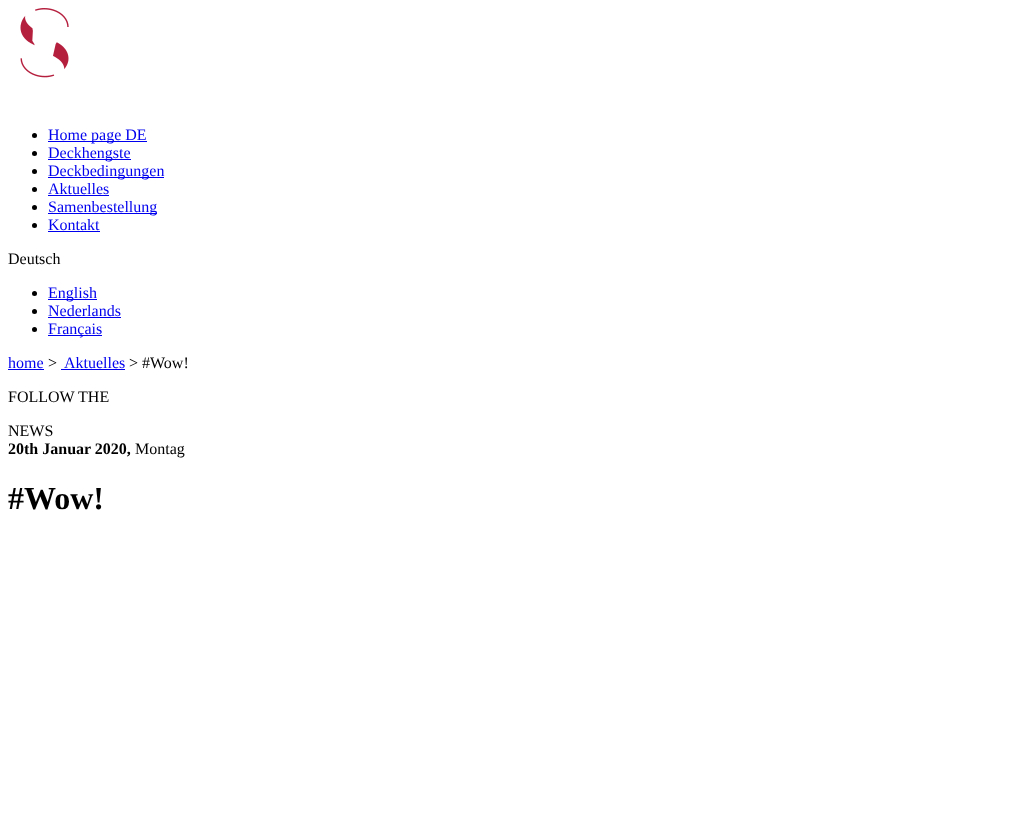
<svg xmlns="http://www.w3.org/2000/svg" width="1029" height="829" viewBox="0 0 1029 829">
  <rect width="100%" height="100%" fill="#ffffff"/>
  <image x="20" y="8" width="49" height="70" href="img1.png"/>
  <circle cx="34.5" cy="135.5" r="2.5" fill="#000000"/>
  <rect x="48" y="141" width="99" height="1" fill="#0000ee"/>
  <text x="48" y="140" font-family="Liberation Serif" font-size="16" fill="#0000ee">Home page DE</text>
  <circle cx="34.5" cy="153.5" r="2.5" fill="#000000"/>
  <rect x="48" y="159" width="83" height="1" fill="#0000ee"/>
  <text x="48" y="158" font-family="Liberation Serif" font-size="16" fill="#0000ee">Deckhengste</text>
  <circle cx="34.5" cy="171.5" r="2.5" fill="#000000"/>
  <rect x="48" y="177" width="116" height="1" fill="#0000ee"/>
  <text x="48" y="176" font-family="Liberation Serif" font-size="16" fill="#0000ee">Deckbedingungen</text>
  <circle cx="34.5" cy="189.5" r="2.5" fill="#000000"/>
  <text x="48" y="194" font-family="Liberation Serif" font-size="16" fill="#0000ee">Aktuelles</text>
  <rect x="48" y="195" width="61" height="1" fill="#0000ee"/>
  <circle cx="34.5" cy="207.5" r="2.5" fill="#000000"/>
  <rect x="48" y="213" width="109" height="1" fill="#0000ee"/>
  <text x="48" y="212" font-family="Liberation Serif" font-size="16" fill="#0000ee">Samenbestellung</text>
  <circle cx="34.5" cy="225.5" r="2.5" fill="#000000"/>
  <text x="48" y="230" font-family="Liberation Serif" font-size="16" fill="#0000ee">Kontakt</text>
  <rect x="48" y="231" width="52" height="1" fill="#0000ee"/>
  <text x="8" y="264" font-family="Liberation Serif" font-size="16" fill="#000000">Deutsch</text>
  <circle cx="34.5" cy="293.5" r="2.5" fill="#000000"/>
  <rect x="48" y="299" width="49" height="1" fill="#0000ee"/>
  <text x="48" y="298" font-family="Liberation Serif" font-size="16" fill="#0000ee">English</text>
  <circle cx="34.5" cy="311.5" r="2.5" fill="#000000"/>
  <text x="48" y="316" font-family="Liberation Serif" font-size="16" fill="#0000ee">Nederlands</text>
  <rect x="48" y="317" width="73" height="1" fill="#0000ee"/>
  <circle cx="34.5" cy="329.5" r="2.5" fill="#000000"/>
  <rect x="48" y="335" width="54" height="1" fill="#0000ee"/>
  <text x="48" y="334" font-family="Liberation Serif" font-size="16" fill="#0000ee">Français</text>
  <text x="8" y="368" font-family="Liberation Serif" font-size="16" fill="#0000ee">home</text>
  <rect x="8" y="369" width="36" height="1" fill="#0000ee"/>
  <text x="48" y="368" font-family="Liberation Serif" font-size="16" fill="#000000">&gt;</text>
  <text x="64" y="368" font-family="Liberation Serif" font-size="16" fill="#0000ee">Aktuelles</text>
  <rect x="61" y="369" width="64" height="1" fill="#0000ee"/>
  <text x="129" y="368" font-family="Liberation Serif" font-size="16" fill="#000000">&gt; #Wow!</text>
  <text x="8" y="402" font-family="Liberation Serif" font-size="16" fill="#000000">FOLLOW THE</text>
  <text x="8" y="436" font-family="Liberation Serif" font-size="16" fill="#000000">NEWS</text>
  <text x="8" y="454" font-family="Liberation Serif" font-size="16" font-weight="bold" fill="#000000">20th Januar 2020,</text>
  <text x="135" y="454" font-family="Liberation Serif" font-size="16" fill="#000000">Montag</text>
  <text x="8" y="509" font-family="Liberation Serif" font-size="32" font-weight="bold" fill="#000000">#Wow!</text>
</svg>
